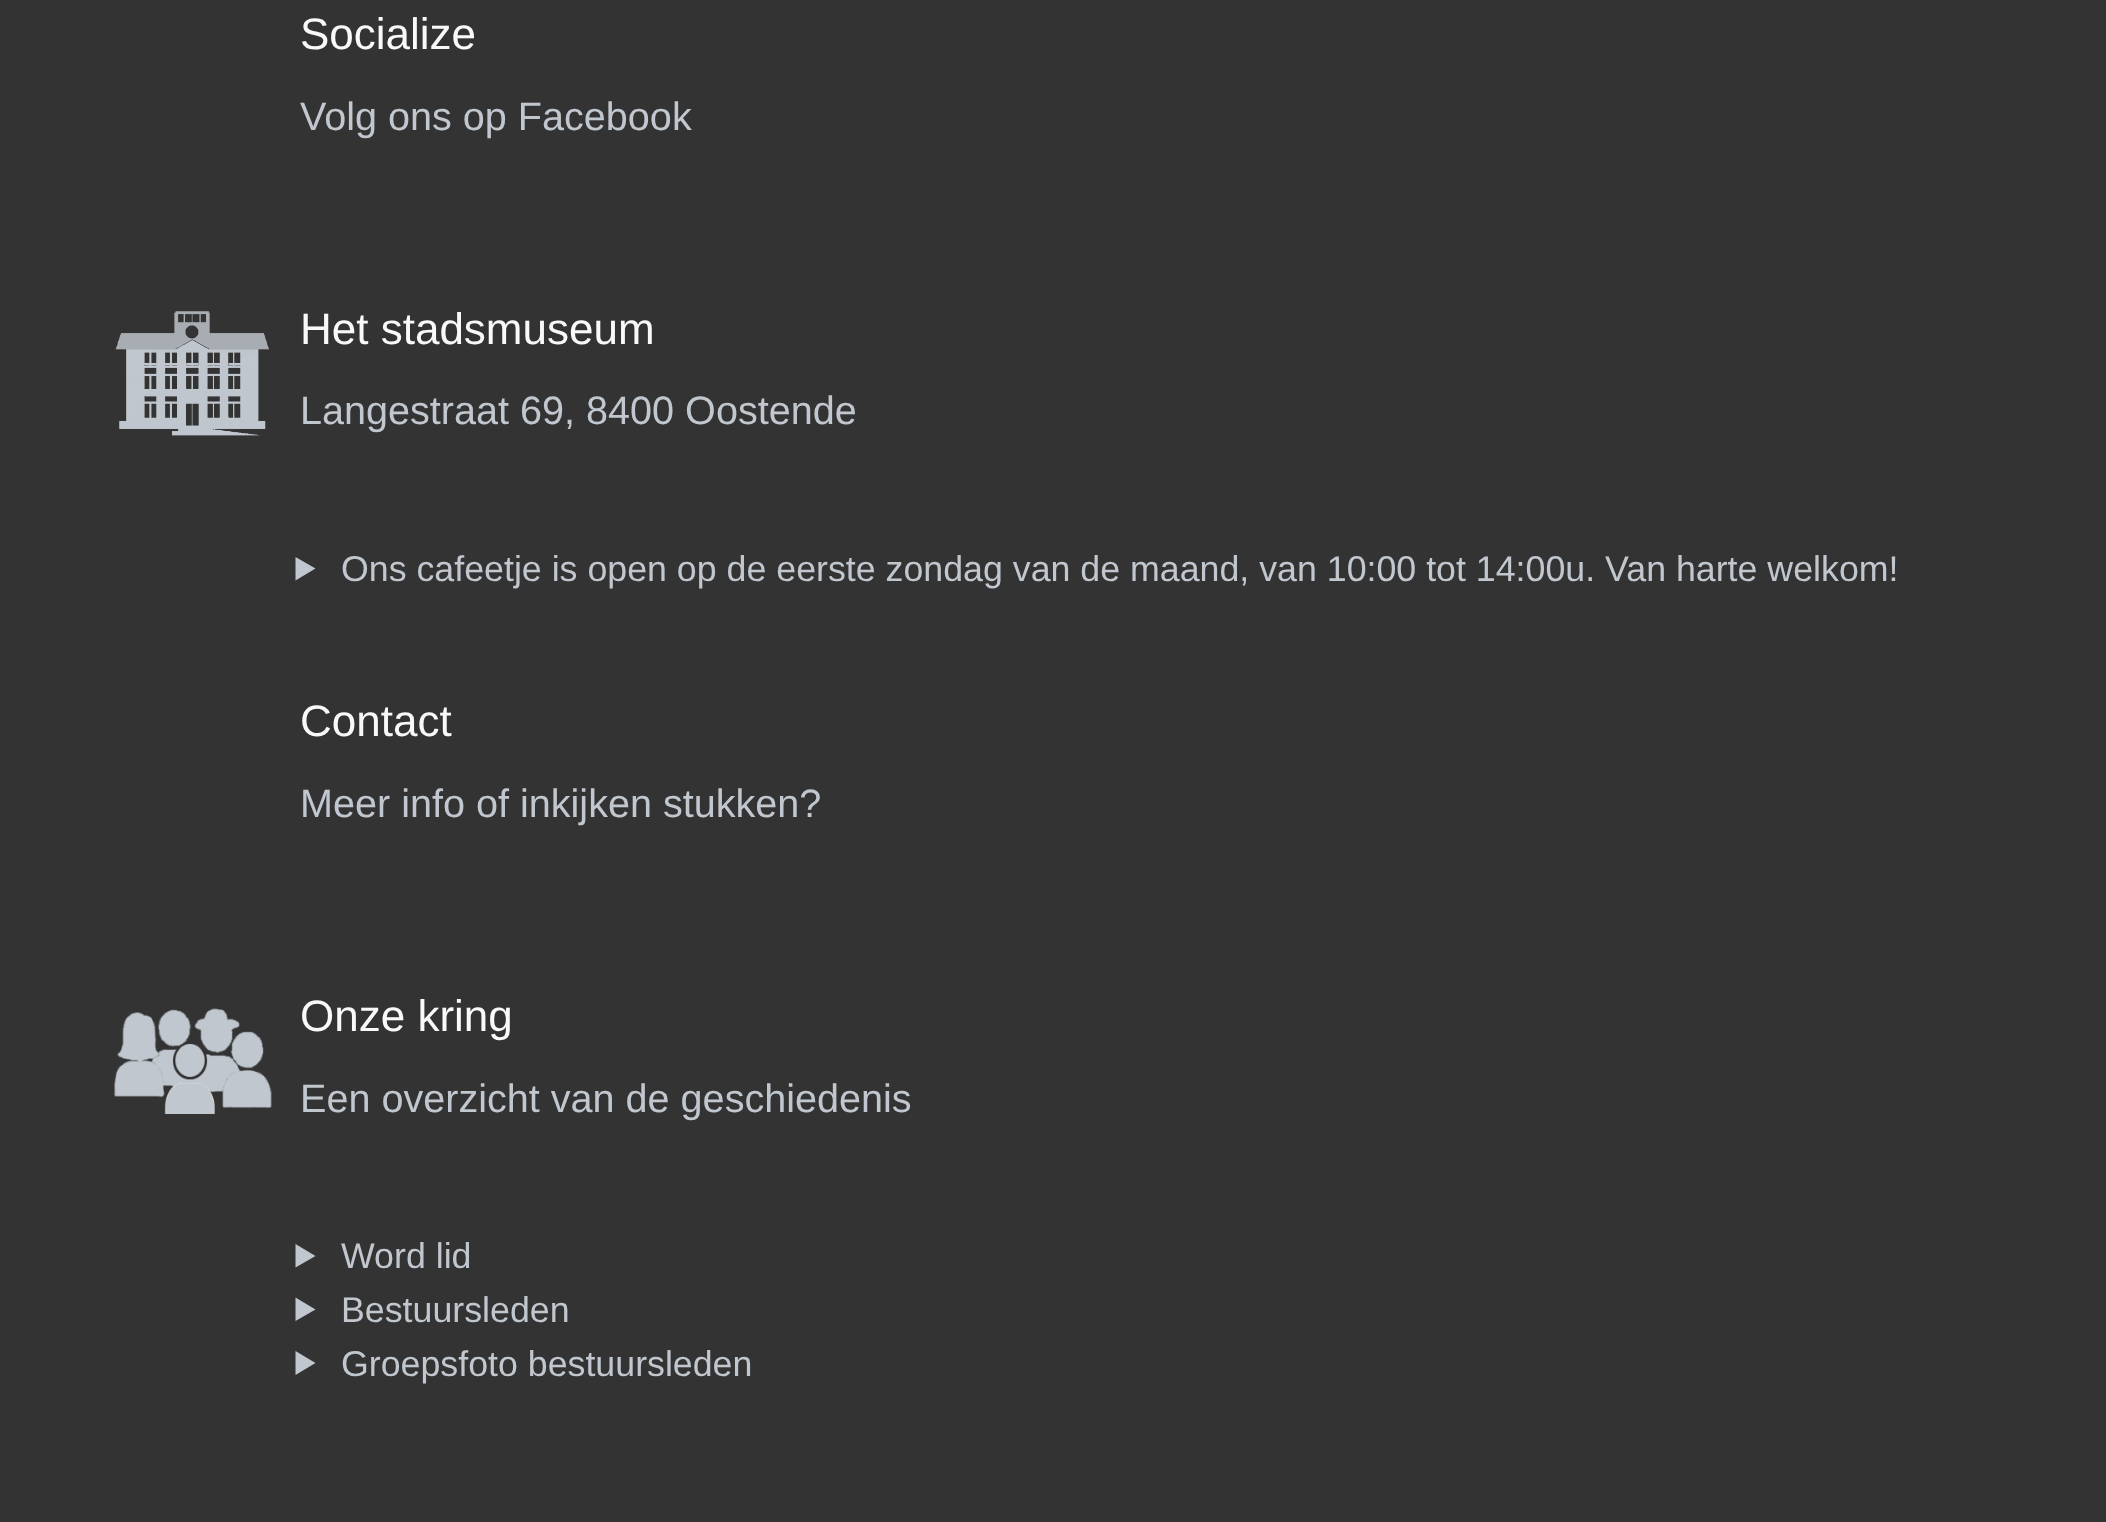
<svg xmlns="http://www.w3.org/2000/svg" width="2106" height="1522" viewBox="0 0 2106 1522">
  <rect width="100%" height="100%" fill="#333333"/>
  <text x="300" y="49" font-family="Liberation Sans" font-size="44" fill="#f8f9fa">Socialize</text>
  <text x="300" y="130" font-family="Liberation Sans" font-size="39.6" fill="#c1c7ce">Volg ons op Facebook</text>
  <image x="115" y="311" width="154" height="125" href="img1.png"/>
  <text x="300" y="344" font-family="Liberation Sans" font-size="44" fill="#f8f9fa">Het stadsmuseum</text>
  <text x="300" y="424" font-family="Liberation Sans" font-size="39.6" fill="#c1c7ce">Langestraat 69, 8400 Oostende</text>
  <path d="M295.5 557L315.5 568.5L295.5 580.5Z" fill="#c1c7ce"/>
  <text x="341" y="581" font-family="Liberation Sans" font-size="35.75" fill="#c1c7ce">Ons cafeetje is open op de eerste zondag van de maand, van 10:00 tot 14:00u. Van harte welkom!</text>
  <text x="300" y="736" font-family="Liberation Sans" font-size="44" fill="#f8f9fa">Contact</text>
  <text x="300" y="817" font-family="Liberation Sans" font-size="39.6" fill="#c1c7ce">Meer info of inkijken stukken?</text>
  <image x="114" y="1008" width="158" height="106" href="img2.png"/>
  <text x="300" y="1031" font-family="Liberation Sans" font-size="44" fill="#f8f9fa">Onze kring</text>
  <text x="300" y="1112" font-family="Liberation Sans" font-size="39.6" fill="#c1c7ce">Een overzicht van de geschiedenis</text>
  <path d="M295.5 1244L315.5 1256L295.5 1267.5Z" fill="#c1c7ce"/>
  <text x="341" y="1268" font-family="Liberation Sans" font-size="35.75" fill="#c1c7ce">Word lid</text>
  <path d="M295.5 1297.5L315.5 1309.5L295.5 1321Z" fill="#c1c7ce"/>
  <text x="341" y="1322" font-family="Liberation Sans" font-size="35.75" fill="#c1c7ce">Bestuursleden</text>
  <path d="M295.5 1351L315.5 1363L295.5 1375Z" fill="#c1c7ce"/>
  <text x="341" y="1376" font-family="Liberation Sans" font-size="35.75" fill="#c1c7ce">Groepsfoto bestuursleden</text>
</svg>
